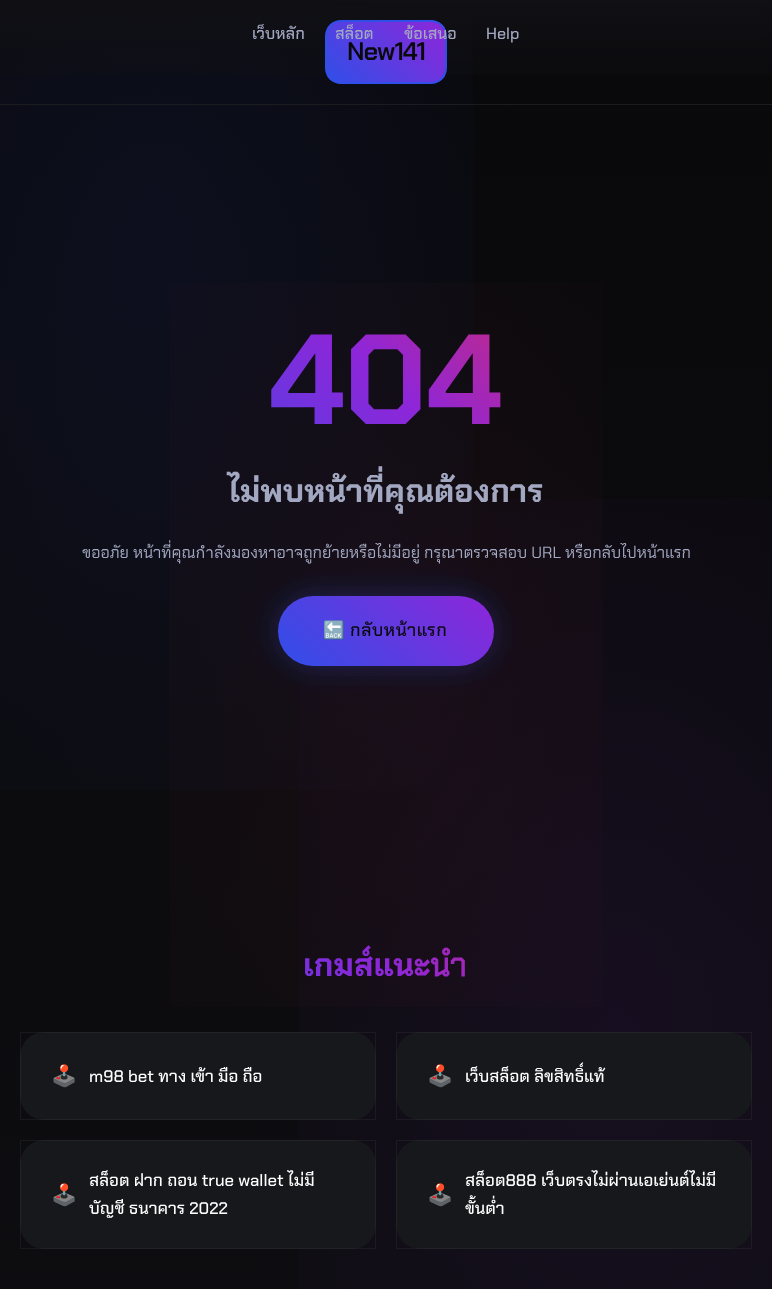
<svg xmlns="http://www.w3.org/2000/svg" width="772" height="1289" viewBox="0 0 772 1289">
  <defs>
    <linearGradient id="g1" gradientUnits="userSpaceOnUse" x1="386" y1="0" x2="386" y2="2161"><stop offset="0" stop-color="#09090c"/><stop offset="1" stop-color="#101014"/></linearGradient>
    <radialGradient id="g2" gradientUnits="userSpaceOnUse" cx="0" cy="0" r="1" gradientTransform="matrix(546 0 0 911 386 645)"><stop offset="0" stop-color="#ee2b3e" stop-opacity="0.05"/><stop offset="0.7" stop-color="#ee2b3e" stop-opacity="0"/></radialGradient>
    <radialGradient id="g3" gradientUnits="userSpaceOnUse" cx="0" cy="0" r="1" gradientTransform="matrix(873 0 0 1458 618 1031)"><stop offset="0" stop-color="#8e26d9" stop-opacity="0.08"/><stop offset="0.5" stop-color="#8e26d9" stop-opacity="0"/></radialGradient>
    <radialGradient id="g4" gradientUnits="userSpaceOnUse" cx="0" cy="0" r="1" gradientTransform="matrix(873 0 0 1458 154 258)"><stop offset="0" stop-color="#304fe8" stop-opacity="0.08"/><stop offset="0.5" stop-color="#304fe8" stop-opacity="0"/></radialGradient>
    <linearGradient id="g5" gradientUnits="userSpaceOnUse" x1="386" y1="0" x2="386" y2="104"><stop offset="0" stop-color="#101014"/><stop offset="1" stop-color="#101014" stop-opacity="0"/></linearGradient>
    <clipPath id="clip1"><rect x="325" y="20" width="122" height="64" rx="16"/></clipPath>
    <linearGradient id="g6" gradientUnits="userSpaceOnUse" x1="342" y1="97" x2="431" y2="7.5"><stop offset="0" stop-color="#304fe8"/><stop offset="1" stop-color="#8e26d9"/></linearGradient>
    <linearGradient id="g7" gradientUnits="userSpaceOnUse" x1="202" y1="564" x2="570" y2="196"><stop offset="0" stop-color="#304fe8"/><stop offset="0.5" stop-color="#8e26d9"/><stop offset="1" stop-color="#ee2b3e"/></linearGradient>
    <linearGradient id="g8" gradientUnits="userSpaceOnUse" x1="189" y1="1162" x2="583" y2="768"><stop offset="0" stop-color="#304fe8"/><stop offset="0.5" stop-color="#8e26d9"/><stop offset="1" stop-color="#ee2b3e"/></linearGradient>
    <filter id="blur1" x="-50%" y="-200%" width="200%" height="500%"><feGaussianBlur stdDeviation="15"/></filter>
    <linearGradient id="g9" gradientUnits="userSpaceOnUse" x1="315" y1="703" x2="458" y2="560"><stop offset="0" stop-color="#304fe8"/><stop offset="1" stop-color="#8e26d9"/></linearGradient>
  </defs>
  <rect width="100%" height="100%" fill="#ffffff"/>
  <rect x="0" y="1" width="772" height="1288" fill="url(#g1)"/>
  <rect x="169" y="283" width="434" height="724" fill="url(#g2)"/>
  <rect x="299" y="499" width="473" height="790" fill="url(#g3)"/>
  <rect x="0" y="1" width="473" height="789" fill="url(#g4)"/>
  <rect x="0" y="0" width="772" height="75" fill="url(#g5)"/>
  <rect x="0" y="104" width="772" height="1" fill="#1c1c20"/>
  <text x="252" y="39" font-family="Chakra Petch" font-size="16" font-weight="500" fill="#a3a8c2">เว็บหลัก</text>
  <g clip-path="url(#clip1)">
    <rect x="327" y="22" width="118" height="60" fill="url(#g6)"/>
  </g>
  <rect x="326" y="21" width="120" height="62" rx="15" fill="none" stroke="#304fe8" stroke-width="2"/>
  <text x="335" y="39" font-family="Chakra Petch" font-size="16" font-weight="500" fill="#a3a8c2">สล็อต</text>
  <text x="404" y="39" font-family="Chakra Petch" font-size="16" font-weight="500" fill="#a3a8c2">ข้อเสนอ</text>
  <text x="486" y="39" font-family="Chakra Petch" font-size="16" font-weight="500" fill="#a3a8c2">Help</text>
  <text x="347" y="60" font-family="Chakra Petch" font-size="25.5" font-weight="600" letter-spacing="-1" fill="#09090c">New141</text>
  <text x="270" y="424" font-family="Chakra Petch" font-size="128" font-weight="bold" fill="url(#g7)">404</text>
  <text x="228" y="502" font-family="Chakra Petch" font-size="32" font-weight="bold" fill="#a3a8c2">ไม่พบหน้าที่คุณต้องการ</text>
  <text x="82" y="558" font-family="Chakra Petch" font-size="16" fill="#a3a8c2">ขออภัย หน้าที่คุณกำลังมองหาอาจถูกย้ายหรือไม่มีอยู่ กรุณาตรวจสอบ URL หรือกลับไปหน้าแรก</text>
  <rect x="278" y="596" width="216" height="70" rx="35" fill="#304fe8" fill-opacity="0.3" filter="url(#blur1)"/>
  <rect x="278" y="596" width="216" height="70" rx="35" fill="url(#g9)"/>
  <text x="323" y="636" font-family="Noto Color Emoji" font-size="17.5" letter-spacing="0.5" fill="#09090c">🔙</text>
  <text x="350" y="636" font-family="Chakra Petch" font-size="17.5" font-weight="500" letter-spacing="0.5" fill="#09090c">กลับหน้าแรก</text>
  <text x="303" y="976" font-family="Chakra Petch" font-size="32" font-weight="bold" fill="url(#g8)">เกมส์แนะนำ</text>
  <rect x="20" y="1032" width="356" height="88" rx="24" fill="#17181c"/>
  <rect x="20.5" y="1032.5" width="355" height="87" fill="none" stroke="#ffffff" stroke-opacity="0.05"/>
  <text x="51" y="1083" font-family="Noto Color Emoji" font-size="21" fill="#ffffff">🕹️</text>
  <text x="89" y="1082" font-family="Chakra Petch" font-size="16.75" font-weight="500" fill="#ffffff">m98 bet ทาง เข้า มือ ถือ</text>
  <rect x="396" y="1032" width="356" height="88" rx="24" fill="#17181c"/>
  <rect x="396.5" y="1032.5" width="355" height="87" fill="none" stroke="#ffffff" stroke-opacity="0.05"/>
  <text x="427" y="1083" font-family="Noto Color Emoji" font-size="21" fill="#ffffff">🕹️</text>
  <text x="465" y="1082" font-family="Chakra Petch" font-size="16.75" font-weight="500" fill="#ffffff">เว็บสล็อต ลิขสิทธิ์แท้</text>
  <rect x="20" y="1140" width="356" height="109" rx="24" fill="#17181c"/>
  <rect x="20.5" y="1140.5" width="355" height="108" fill="none" stroke="#ffffff" stroke-opacity="0.05"/>
  <text x="51" y="1202" font-family="Noto Color Emoji" font-size="21" fill="#ffffff">🕹️</text>
  <text x="89" y="1186" font-family="Chakra Petch" font-size="16.75" font-weight="500" fill="#ffffff">สล็อต ฝาก ถอน true wallet ไม่มี</text>
  <text x="89" y="1214" font-family="Chakra Petch" font-size="16.75" font-weight="500" fill="#ffffff">บัญชี ธนาคาร 2022</text>
  <rect x="396" y="1140" width="356" height="109" rx="24" fill="#17181c"/>
  <rect x="396.5" y="1140.5" width="355" height="108" fill="none" stroke="#ffffff" stroke-opacity="0.05"/>
  <text x="427" y="1202" font-family="Noto Color Emoji" font-size="21" fill="#ffffff">🕹️</text>
  <text x="465" y="1186" font-family="Chakra Petch" font-size="16.75" font-weight="500" fill="#ffffff">สล็อต888 เว็บตรงไม่ผ่านเอเย่นต์ไม่มี</text>
  <text x="465" y="1214" font-family="Chakra Petch" font-size="16.75" font-weight="500" fill="#ffffff">ขั้นต่ํา</text>
</svg>
